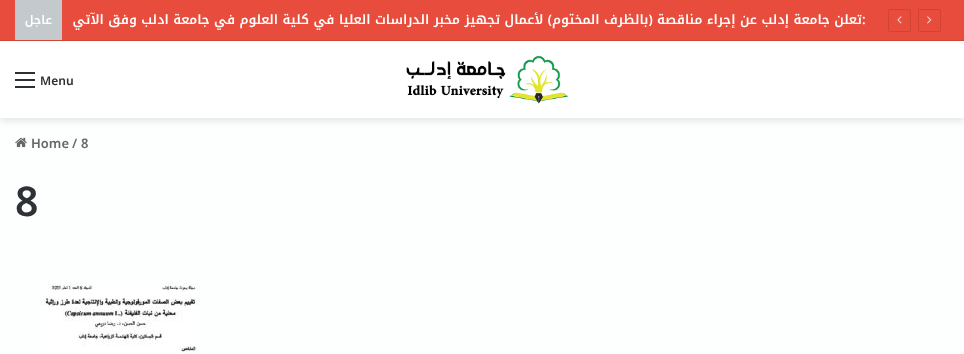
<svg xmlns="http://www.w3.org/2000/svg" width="964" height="354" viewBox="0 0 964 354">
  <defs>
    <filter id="blur1" x="-50%" y="-200%" width="200%" height="500%"><feGaussianBlur stdDeviation="3.5"/></filter>
  </defs>
  <rect width="100%" height="100%" fill="#fcfffd"/>
  <rect x="0" y="44" width="964" height="77" fill="#000000" fill-opacity="0.1" filter="url(#blur1)"/>
  <rect x="0" y="0" width="964" height="40" fill="#e74c3c"/>
  <rect x="0" y="40" width="964" height="1" fill="#d04436"/>
  <rect x="918.5" y="9.5" width="22" height="22" rx="1.5" fill="none" stroke="#d04436"/>
  <image x="927" y="16" width="5" height="8" href="img1.png"/>
  <rect x="888.5" y="9.5" width="22" height="22" rx="1.5" fill="none" stroke="#d04436"/>
  <image x="897" y="16" width="5" height="8" href="img2.png"/>
  <text x="862" y="24" font-family="Noto Kufi Arabic" font-size="13" font-weight="600" fill="#ffffff">:</text>
  <text x="862" y="24" font-family="Noto Kufi Arabic" font-size="13" font-weight="600" direction="rtl" fill="#ffffff">تعلن جامعة إدلب عن إجراء مناقصة (بالظرف المختوم) لأعمال تجهيز مخبر الدراسات العليا في كلية العلوم في جامعة ادلب وفق الآتي</text>
  <rect x="15" y="0" width="47" height="40" fill="#c3c9cc"/>
  <text x="52" y="24" font-family="Noto Kufi Arabic" font-size="12" font-weight="600" direction="rtl" fill="#ffffff">عاجل</text>
  <rect x="0" y="41" width="964" height="77" fill="#ffffff"/>
  <image x="406" y="55" width="162" height="49" href="img3.png"/>
  <text x="40" y="85" font-family="Noto Kufi Arabic" font-size="12" font-weight="600" fill="#2e3136">Menu</text>
  <rect x="15" y="79" width="20" height="2" fill="#2c2f34"/>
  <rect x="15" y="72" width="20" height="2" fill="#2c2f34"/>
  <rect x="15" y="86" width="20" height="2" fill="#2c2f34"/>
  <text x="81" y="148" font-family="Noto Kufi Arabic" font-size="13" font-weight="600" fill="#686868">8</text>
  <text x="72" y="148" font-family="Noto Kufi Arabic" font-size="13" font-weight="600" fill="#686868">/</text>
  <text x="31" y="148" font-family="Noto Kufi Arabic" font-size="13" font-weight="600" fill="#686868">Home</text>
  <image x="15" y="137" width="12" height="11" href="img4.png"/>
  <text x="15" y="216" font-family="Noto Kufi Arabic" font-size="41" font-weight="600" fill="#2e3136">8</text>
  <image x="39" y="282" width="160" height="72" href="img5.png"/>
</svg>
